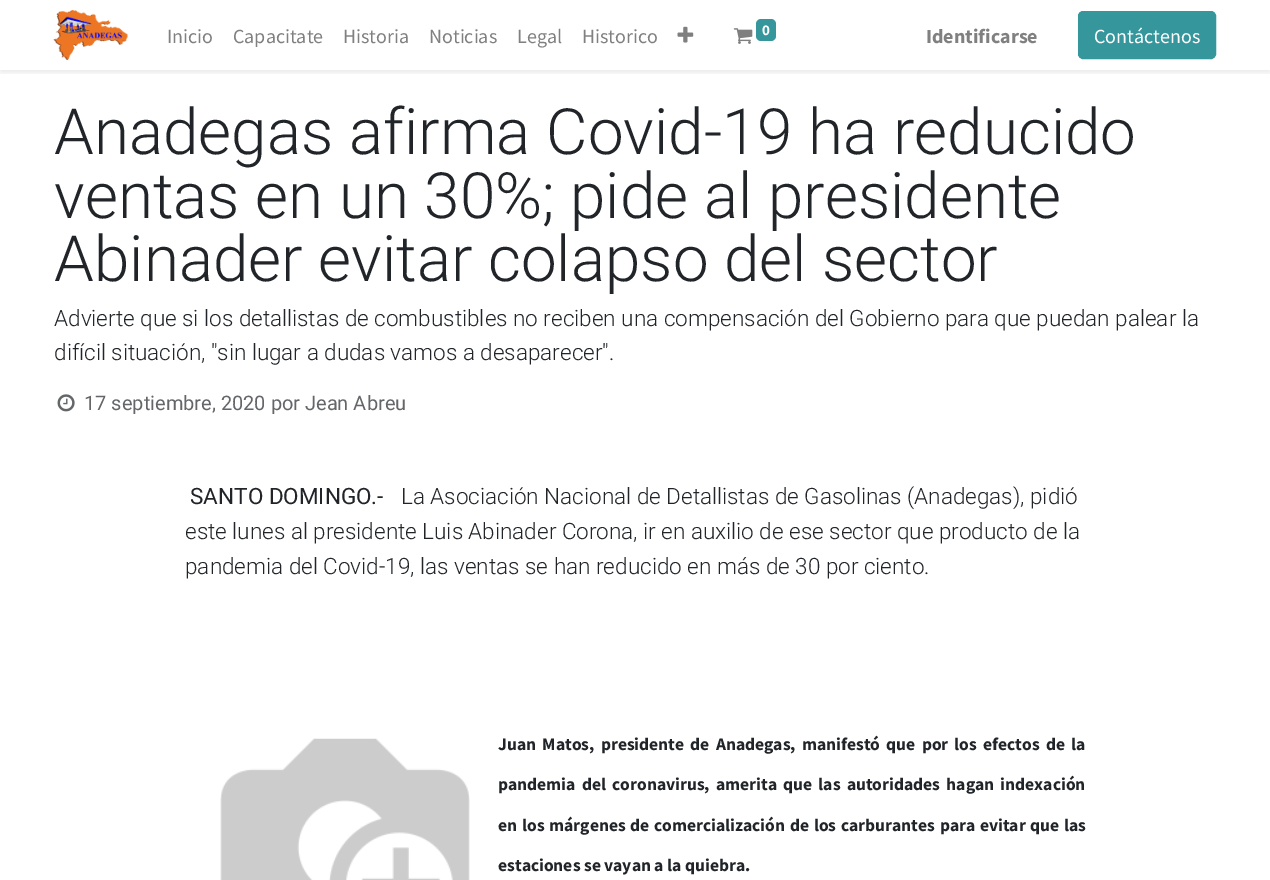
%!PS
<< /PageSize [1270 880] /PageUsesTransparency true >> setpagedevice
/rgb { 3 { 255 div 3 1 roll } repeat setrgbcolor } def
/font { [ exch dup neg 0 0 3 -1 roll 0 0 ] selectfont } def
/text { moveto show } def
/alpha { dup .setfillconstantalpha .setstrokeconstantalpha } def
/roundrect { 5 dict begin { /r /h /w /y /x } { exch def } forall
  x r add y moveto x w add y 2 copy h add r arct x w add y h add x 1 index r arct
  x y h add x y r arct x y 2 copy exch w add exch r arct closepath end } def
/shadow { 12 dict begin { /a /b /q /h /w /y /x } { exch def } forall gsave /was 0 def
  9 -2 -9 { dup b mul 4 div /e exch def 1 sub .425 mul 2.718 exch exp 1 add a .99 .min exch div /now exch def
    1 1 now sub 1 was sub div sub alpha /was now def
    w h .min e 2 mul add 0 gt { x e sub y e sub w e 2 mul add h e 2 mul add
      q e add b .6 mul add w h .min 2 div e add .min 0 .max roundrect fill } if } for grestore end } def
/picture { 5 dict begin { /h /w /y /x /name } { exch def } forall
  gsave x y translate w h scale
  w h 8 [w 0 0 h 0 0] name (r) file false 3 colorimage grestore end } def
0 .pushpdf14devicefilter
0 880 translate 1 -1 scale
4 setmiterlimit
255 255 255 rgb
0 0 1270 880 rectfill
gsave
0 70 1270 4 rectclip
0 0 0 rgb
0 3 1270 70 0 2.5 0.07 shadow
grestore
(img_01.rgb) 53 10 75 50 picture
(img_02.rgb) 677 26 17 17 picture
(img_03.rgb) 733 28 20 16 picture
53 151 156 rgb
756 19 20 22 5 roundrect fill
1078.5 11.5 137 47 4.5 roundrect gsave fill grestore
stroke
(img_04.rgb) 57 394 18 18 picture
(img_05.rgb) 220 738 250 142 picture
/SourceSansPro-Regular 20 font
128 128 128 rgb
(Inicio) 167 43 text
(Capacitate) 233 43 text
(Historia) 343 43 text
(Noticias) 429 43 text
(Legal) 517 43 text
(Historico) 582 43 text
/SourceSansPro-Bold 15 font
255 255 255 rgb
(0) 762 35 text
/SourceSansPro-Bold 20 font
128 128 128 rgb
(Identificarse) 926 43 text
/SourceSansPro-Regular 20 font
255 255 255 rgb
(Contáctenos) 1094 43 text
/Roboto-Light 63.75 font
33 37 41 rgb
(Anadegas afirma Covid-19 ha reducido) 54 154 text
(ventas en un 30%; pide al presidente) 54 218 text
(Abinader evitar colapso del sector) 54 281 text
/Roboto-Light 22.5 font
(Advierte que si los detallistas de combustibles no reciben una compensación del Gobierno para que puedan palear la) 54 326 text
(difícil situación, "sin lugar a dudas vamos a desaparecer".) 54 360 text
/Roboto-Regular 20 font
100 102 105 rgb
(17 septiembre, 2020 por Jean Abreu) 84 410 text
/Roboto-Regular 22.5 font
33 37 41 rgb
(SANTO DOMINGO.-) 190 504 text
/Roboto-Light 22.5 font
(La Asociación Nacional de Detallistas de Gasolinas \(Anadegas\), pidió) 401 504 text
(este lunes al presidente Luis Abinader Corona, ir en auxilio de ese sector que producto de la) 185 539 text
(pandemia del Covid-19, las ventas se han reducido en más de 30 por ciento.) 185 574 text
/SourceSansPro-Bold 17.5 font
498 750 moveto 2.75 0 32 (Juan Matos, presidente de Anadegas, manifestó que por los efectos de la) widthshow
498 790 moveto 2.75 0 32 (pandemia del coronavirus, amerita que las autoridades hagan indexación) widthshow
498 831 moveto 1.25 0 32 (en los márgenes de comercialización de los carburantes para evitar que las) widthshow
(estaciones se vayan a la quiebra.) 498 871 text
.poppdf14devicefilter showpage
